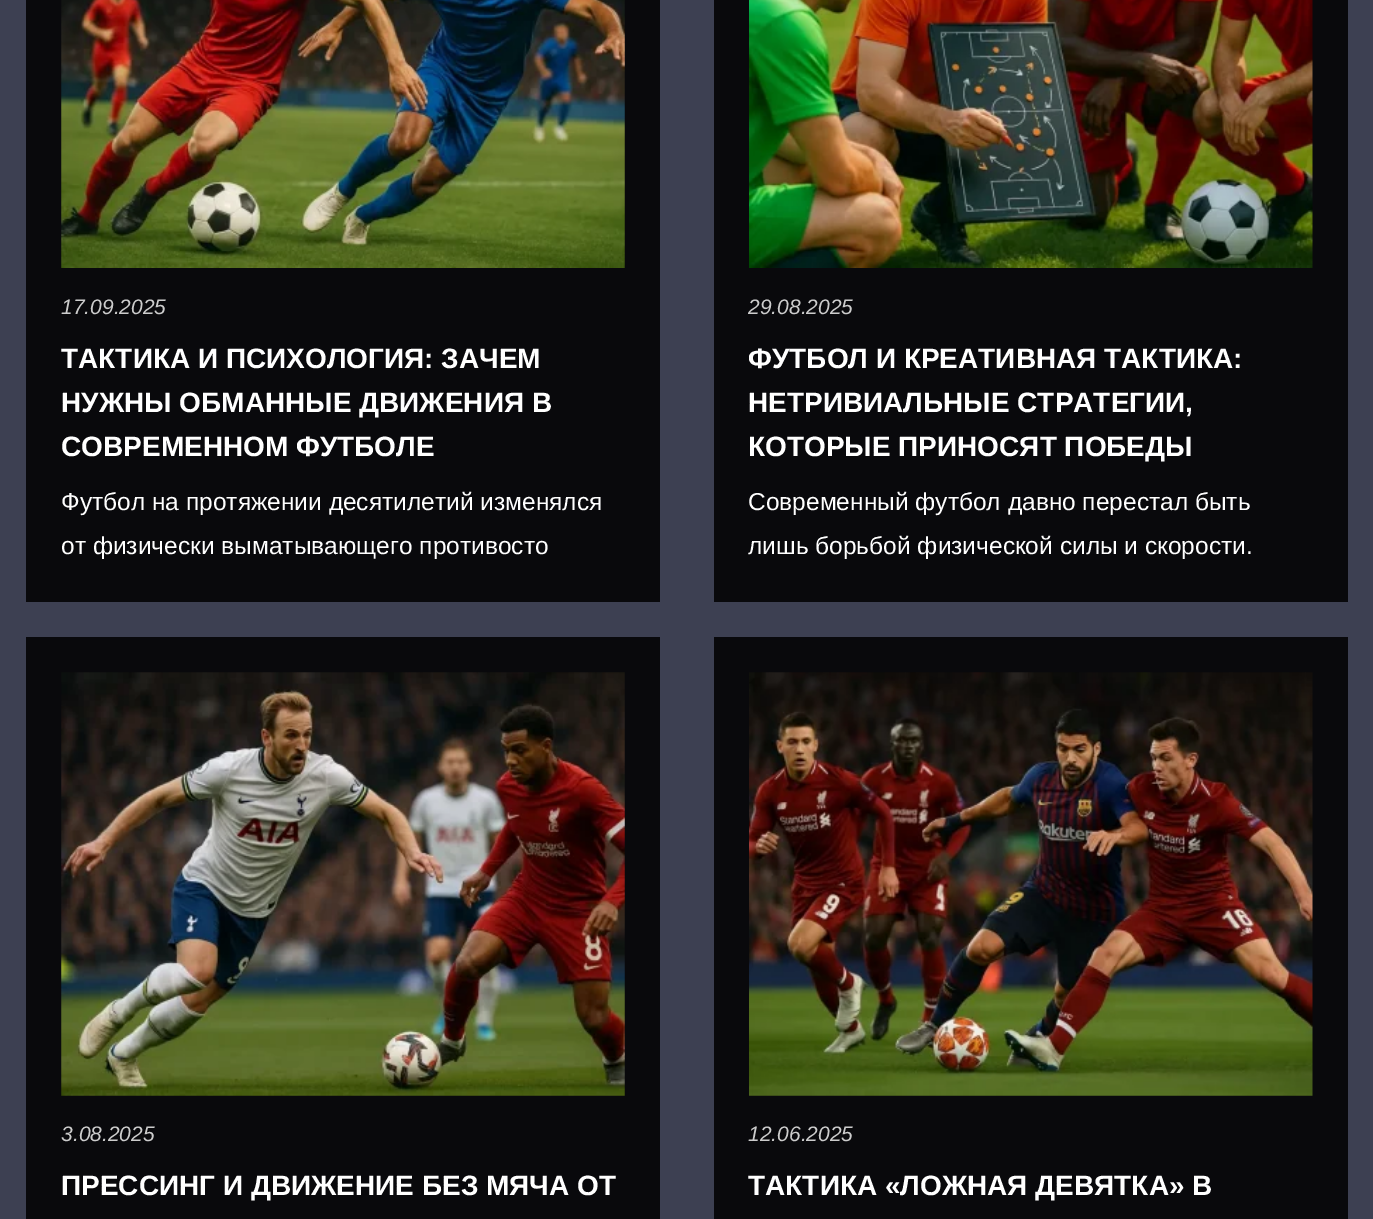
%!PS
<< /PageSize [1373 1219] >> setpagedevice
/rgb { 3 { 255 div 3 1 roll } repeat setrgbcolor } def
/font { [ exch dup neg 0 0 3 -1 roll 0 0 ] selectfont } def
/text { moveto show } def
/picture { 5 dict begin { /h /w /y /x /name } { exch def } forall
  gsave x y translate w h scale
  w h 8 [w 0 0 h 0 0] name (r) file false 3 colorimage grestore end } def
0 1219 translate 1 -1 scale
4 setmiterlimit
61 64 82 rgb
0 0 1373 1219 rectfill
9 9 12 rgb
26 0 634 602 rectfill
(img_01.rgb) 61 0 564 268 picture
714 0 634 602 rectfill
(img_02.rgb) 749 0 564 268 picture
26 637 634 582 rectfill
(img_03.rgb) 61 672 564 424 picture
714 637 634 582 rectfill
(img_04.rgb) 749 672 564 424 picture
/LiberationSans-Italic 21 font
204 204 204 rgb
(17.09.2025) 61 314 text
/LiberationSans-Bold 28 font
255 255 255 rgb
(ТАКТИКА И ПСИХОЛОГИЯ: ЗАЧЕМ) 61 368 text
(НУЖНЫ ОБМАННЫЕ ДВИЖЕНИЯ В) 61 412 text
(СОВРЕМЕННОМ ФУТБОЛЕ) 61 456 text
/LiberationSans-Regular 24.5 font
(Футбол на протяжении десятилетий изменялся) 61 510 text
(от физически выматывающего противосто) 61 554 text
/LiberationSans-Italic 21 font
204 204 204 rgb
(29.08.2025) 748 314 text
/LiberationSans-Bold 28 font
255 255 255 rgb
(ФУТБОЛ И КРЕАТИВНАЯ ТАКТИКА:) 748 368 text
(НЕТРИВИАЛЬНЫЕ СТРАТЕГИИ,) 748 412 text
(КОТОРЫЕ ПРИНОСЯТ ПОБЕДЫ) 748 456 text
/LiberationSans-Regular 24.5 font
(Современный футбол давно перестал быть) 748 510 text
(лишь борьбой физической силы и скорости.) 748 554 text
/LiberationSans-Italic 21 font
204 204 204 rgb
(3.08.2025) 61 1141 text
/LiberationSans-Bold 28 font
255 255 255 rgb
(ПРЕССИНГ И ДВИЖЕНИЕ БЕЗ МЯЧА ОТ) 61 1195 text
/LiberationSans-Italic 21 font
204 204 204 rgb
(12.06.2025) 748 1141 text
/LiberationSans-Bold 28 font
255 255 255 rgb
(ТАКТИКА «ЛОЖНАЯ ДЕВЯТКА» В) 748 1195 text
showpage
